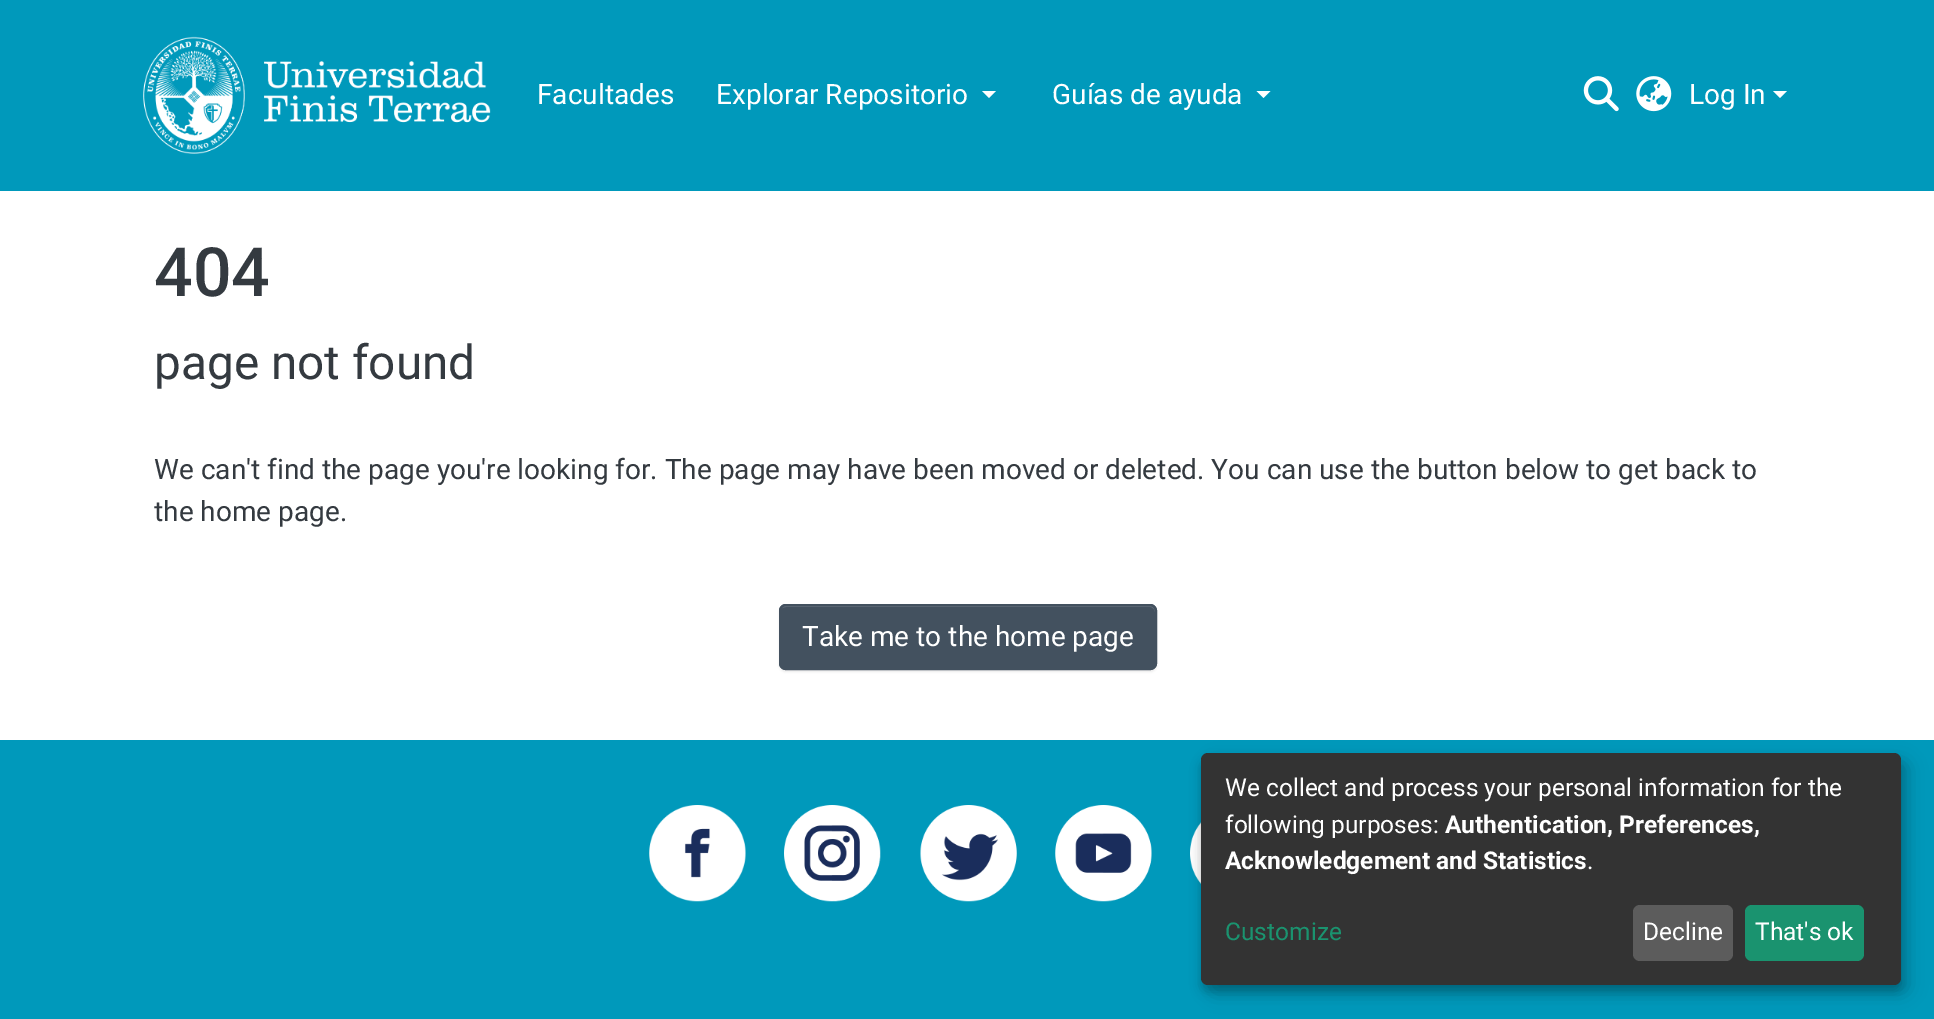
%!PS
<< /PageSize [1934 1019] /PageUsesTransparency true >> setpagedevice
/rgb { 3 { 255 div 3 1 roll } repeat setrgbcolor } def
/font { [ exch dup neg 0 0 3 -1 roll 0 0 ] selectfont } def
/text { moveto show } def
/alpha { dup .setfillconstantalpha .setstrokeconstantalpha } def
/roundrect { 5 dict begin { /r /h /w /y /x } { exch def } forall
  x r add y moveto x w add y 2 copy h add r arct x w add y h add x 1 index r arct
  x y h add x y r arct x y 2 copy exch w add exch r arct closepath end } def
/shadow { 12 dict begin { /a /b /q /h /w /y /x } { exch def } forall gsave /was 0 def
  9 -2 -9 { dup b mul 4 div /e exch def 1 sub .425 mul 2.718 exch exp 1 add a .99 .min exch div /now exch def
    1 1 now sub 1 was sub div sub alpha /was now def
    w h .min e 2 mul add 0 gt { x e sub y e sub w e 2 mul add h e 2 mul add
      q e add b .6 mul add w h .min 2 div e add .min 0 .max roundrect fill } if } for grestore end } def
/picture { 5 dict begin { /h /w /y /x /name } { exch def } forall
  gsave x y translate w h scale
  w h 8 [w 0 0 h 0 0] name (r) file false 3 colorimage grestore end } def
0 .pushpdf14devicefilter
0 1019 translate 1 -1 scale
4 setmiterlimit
255 255 255 rgb
0 0 1934 1019 rectfill
0 153 187 rgb
0 0 1934 191 rectfill
(img_01.rgb) 143 36 348 118 picture
255 255 255 rgb
982 91 moveto 14 0 rlineto -7 7 rlineto closepath fill
1256.5 91 moveto 14 0 rlineto -7 7 rlineto closepath fill
(img_02.rgb) 1583 76 36 36 picture
(img_03.rgb) 1636 76 36 36 picture
1773 91 moveto 14 0 rlineto -7 7 rlineto closepath fill
0 0 0 rgb
779 606 378 66 7 1 0.07 shadow
67 81 95 rgb
779 604 378 66 7 roundrect fill
95 107 119 rgb
786 607 moveto 364 0 rlineto 3 0 5 3 5 5 rcurveto 0 -3 -2 -6 -5 -6 rcurveto -365 0 rlineto -2 0 -3 2 -4 3 rcurveto 1 -1 3 -2 5 -2 rcurveto closepath fill
67 81 95 rgb
2 setlinewidth
780 605 376 64 6 roundrect stroke
0 153 187 rgb
0 740 1934 279 rectfill
(img_04.rgb) 649 805 97 97 picture
(img_05.rgb) 784 805 97 97 picture
(img_06.rgb) 920 805 97 97 picture
(img_07.rgb) 1055 805 97 97 picture
(img_08.rgb) 1190 822 11 62 picture
0 0 0 rgb
1209 761 700 233 7 9 0.19 shadow
1201 760 700 232 7 5 0.2 shadow
51 51 51 rgb
1201 753 700 232 7 roundrect fill
92 92 92 rgb
1633 905 100 56 7 roundrect fill
26 147 111 rgb
1745 905 119 56 7 roundrect fill
/Roboto-Regular 28 font
255 255 255 rgb
(Facultades) 537 104 text
(Explorar Repositorio) 716 104 text
(Guías de ayuda) 1052 104 text
(Log In) 1689 104 text
/Roboto-Medium 68 font
52 58 64 rgb
(404) 154 296 text
/Roboto-Regular 47.75 font
(page not found) 154 379 text
/Roboto-Regular 28 font
(We can't find the page you're looking for. The page may have been moved or deleted. You can use the button below to get back to) 154 479 text
(the home page.) 154 521 text
255 255 255 rgb
(Take me to the home page) 802 646 text
/Roboto-Regular 24.5 font
(We collect and process your personal information for the) 1225 796 text
(following purposes:) 1225 833 text
/Roboto-Bold 24.5 font
(Authentication, Preferences,) 1445 833 text
(Acknowledgement and Statistics) 1225 869 text
/Roboto-Regular 24.5 font
(.) 1587 869 text
26 147 111 rgb
(Customize) 1225 940 text
255 255 255 rgb
(Decline) 1643 940 text
(That's ok) 1755 940 text
.poppdf14devicefilter showpage
